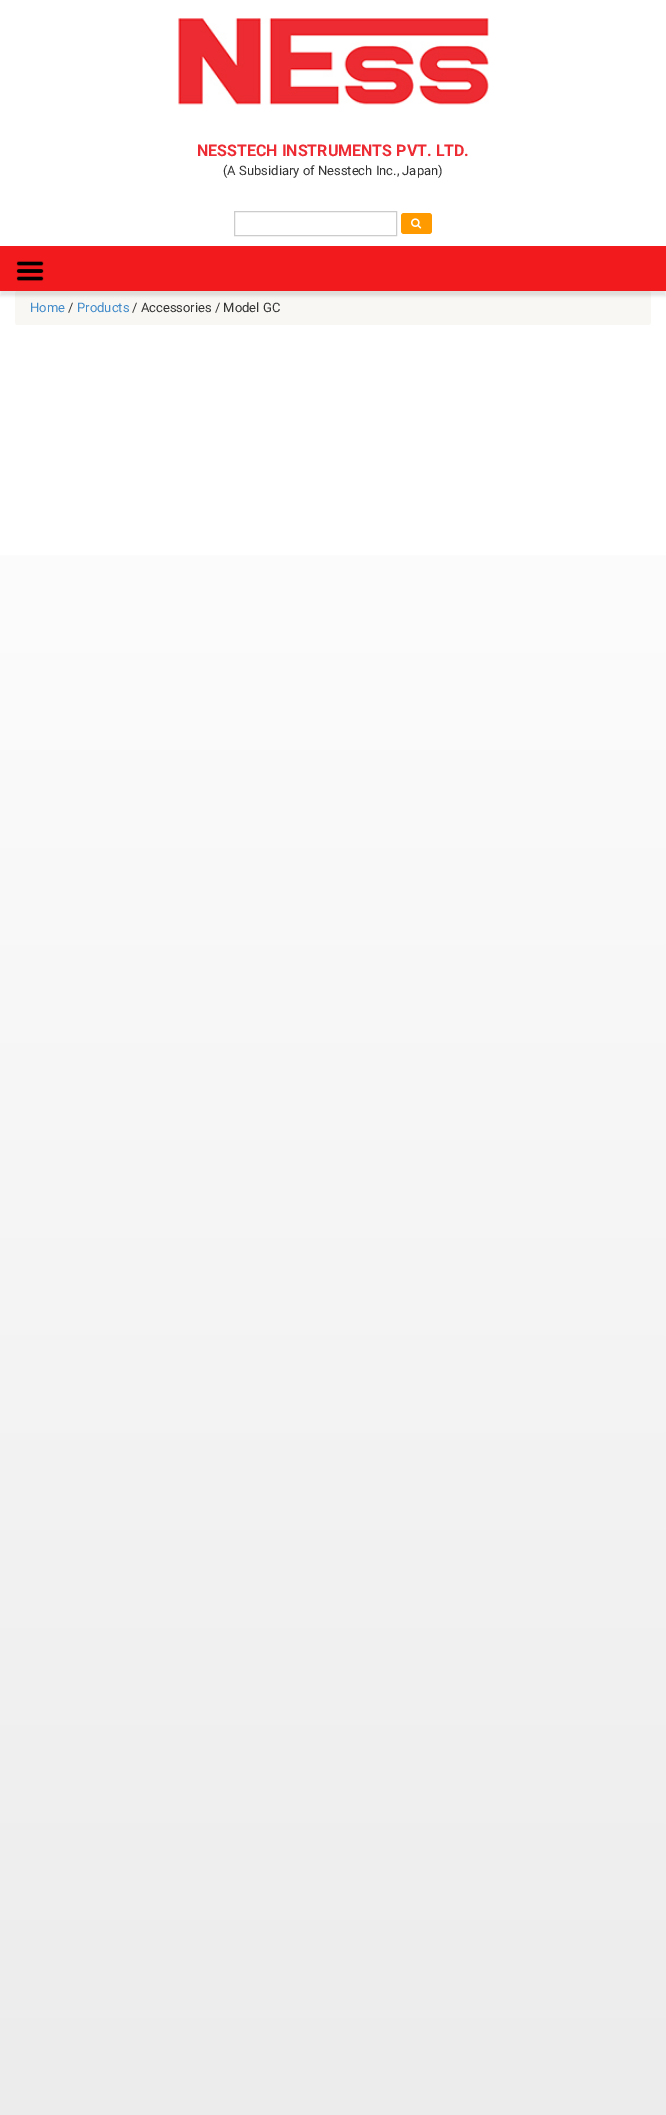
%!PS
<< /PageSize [666 2115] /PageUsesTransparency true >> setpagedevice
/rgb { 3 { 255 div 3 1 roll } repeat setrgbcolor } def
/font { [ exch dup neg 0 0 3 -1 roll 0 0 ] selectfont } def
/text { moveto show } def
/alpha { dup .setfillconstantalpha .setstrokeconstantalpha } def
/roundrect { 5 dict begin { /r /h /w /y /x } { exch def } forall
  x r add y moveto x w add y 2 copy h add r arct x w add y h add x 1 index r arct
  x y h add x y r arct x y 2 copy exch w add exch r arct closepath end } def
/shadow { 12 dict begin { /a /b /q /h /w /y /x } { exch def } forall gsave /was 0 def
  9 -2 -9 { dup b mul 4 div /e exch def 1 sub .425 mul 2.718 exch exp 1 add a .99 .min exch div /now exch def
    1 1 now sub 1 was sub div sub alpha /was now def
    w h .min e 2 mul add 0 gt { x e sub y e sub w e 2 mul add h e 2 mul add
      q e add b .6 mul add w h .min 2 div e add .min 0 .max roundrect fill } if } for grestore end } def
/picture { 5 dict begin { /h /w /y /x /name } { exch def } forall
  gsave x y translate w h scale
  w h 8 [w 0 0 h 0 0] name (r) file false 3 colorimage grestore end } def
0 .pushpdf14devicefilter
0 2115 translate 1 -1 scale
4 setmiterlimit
255 255 255 rgb
0 0 666 2115 rectfill
(img_01.rgb) 178 18 311 87 picture
204 204 204 rgb
234.5 211.5 162 24 rectstroke
255 154 0 rgb
401 213 31 21 3 roundrect fill
(img_02.rgb) 411 218 11 11 picture
248 247 243 rgb
15 291 636 34 3 roundrect fill
0 0 0 rgb
0 251 666 45 0 1.5 0.1 shadow
242 26 29 rgb
0 246 666 45 rectfill
(img_03.rgb) 16 261 28 20 picture
gsave 0 555 moveto 666 0 rlineto 0 1560 rlineto -666 0 rlineto closepath clip newpath
<< /ShadingType 2 /ColorSpace /DeviceRGB /Coords [333 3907 333 325] /Extend [true true] /Function << /FunctionType 2 /Domain [0 1] /C0 [0.847 0.847 0.847] /C1 [1 1 1] /N 1 >> >> shfill grestore
/Roboto-Bold 16 font
237 43 51 rgb
(NESSTECH INSTRUMENTS PVT. LTD.) 197 156 text
/Roboto-Regular 13 font
51 51 51 rgb
(\(A Subsidiary of Nesstech Inc., Japan\)) 223 175 text
66 139 202 rgb
(Home) 30 312 text
51 51 51 rgb
(/) 68 312 text
66 139 202 rgb
(Products) 77 312 text
51 51 51 rgb
(/ Accessories / Model GC) 132 312 text
.poppdf14devicefilter showpage
